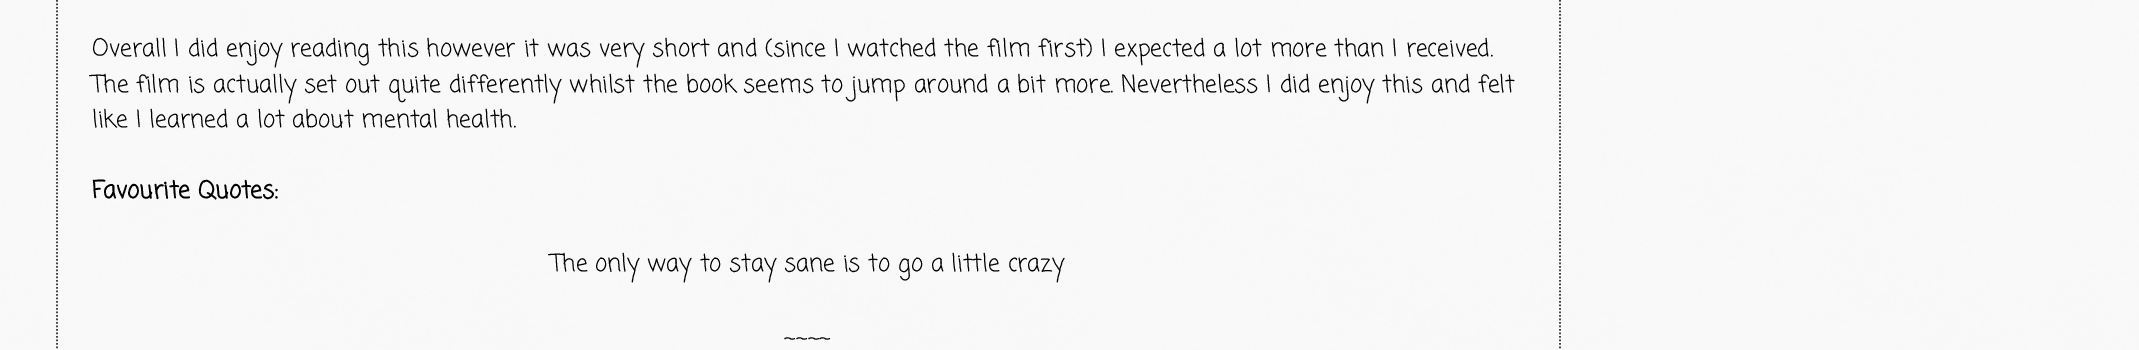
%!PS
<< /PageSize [2139 350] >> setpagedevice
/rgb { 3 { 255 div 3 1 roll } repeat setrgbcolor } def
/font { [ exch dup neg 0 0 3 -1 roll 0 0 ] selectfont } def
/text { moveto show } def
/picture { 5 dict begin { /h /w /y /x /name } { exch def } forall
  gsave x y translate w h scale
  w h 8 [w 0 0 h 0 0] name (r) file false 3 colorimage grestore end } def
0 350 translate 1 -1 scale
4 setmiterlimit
243 243 243 rgb
0 0 2139 350 rectfill
(img_01.rgb) 0 0 2139 350 picture
68 68 68 rgb
1.8 setlinewidth
[1.75 1.75] 0 setdash
1560 -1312.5 moveto 0 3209.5 rlineto stroke
57 -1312.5 moveto 0 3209.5 rlineto stroke
/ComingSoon-Regular 23.67 font
0 0 0 rgb
(Overall I did enjoy reading this however it was very short and \(since I watched the film first\) I expected a lot more than I received.) 92 56 text
(The film is actually set out quite differently whilst the book seems to jump around a bit more. Nevertheless I did enjoy this and felt) 92 92 text
(like I learned a lot about mental health.) 92 127 text
/ComingSoon-Bold 23.67 font
(Favourite Quotes:) 92 198 text
/ComingSoon-Regular 23.67 font
(The only way to stay sane is to go a little crazy) 551 271 text
(~~~~) 784 346 text
showpage
